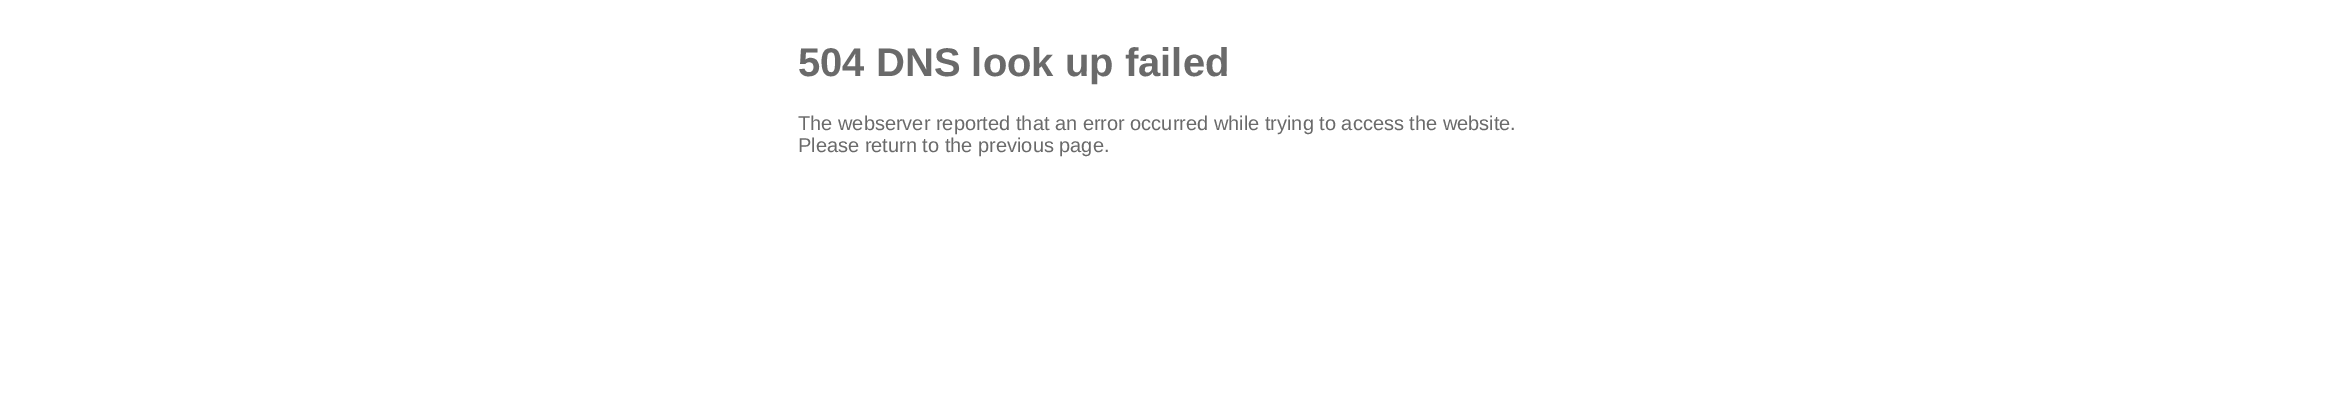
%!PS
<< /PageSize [2344 403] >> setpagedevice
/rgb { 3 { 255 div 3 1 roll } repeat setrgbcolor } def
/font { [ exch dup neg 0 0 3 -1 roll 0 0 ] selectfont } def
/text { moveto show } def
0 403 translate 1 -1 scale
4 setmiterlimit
255 255 255 rgb
0 0 2344 403 rectfill
/LiberationSans-Bold 40 font
106 106 106 rgb
(504 DNS look up failed) 798 76 text
/LiberationSans-Regular 20 font
(The webserver reported that an error occurred while trying to access the website.) 798 130 text
(Please return to the previous page.) 798 152 text
showpage
